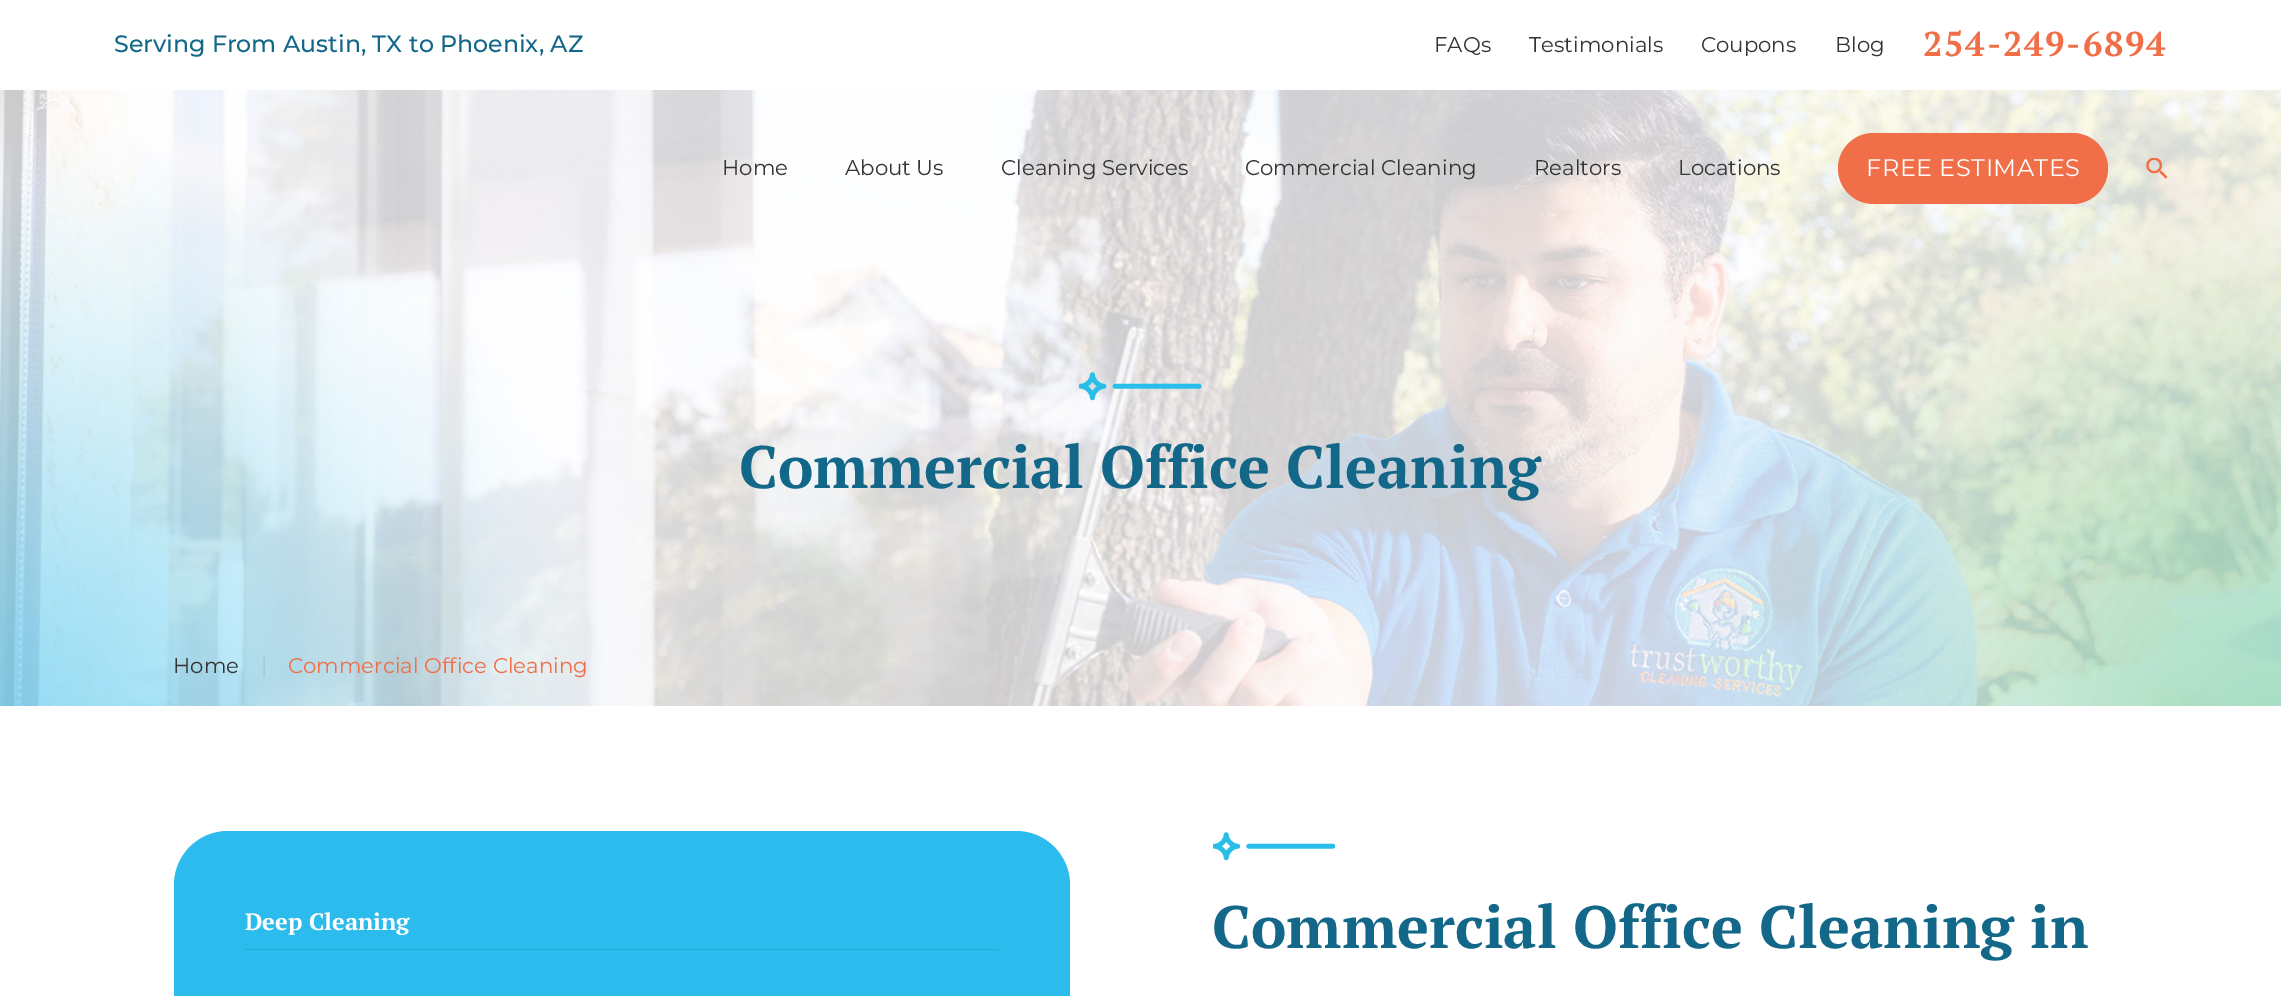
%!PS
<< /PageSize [2281 996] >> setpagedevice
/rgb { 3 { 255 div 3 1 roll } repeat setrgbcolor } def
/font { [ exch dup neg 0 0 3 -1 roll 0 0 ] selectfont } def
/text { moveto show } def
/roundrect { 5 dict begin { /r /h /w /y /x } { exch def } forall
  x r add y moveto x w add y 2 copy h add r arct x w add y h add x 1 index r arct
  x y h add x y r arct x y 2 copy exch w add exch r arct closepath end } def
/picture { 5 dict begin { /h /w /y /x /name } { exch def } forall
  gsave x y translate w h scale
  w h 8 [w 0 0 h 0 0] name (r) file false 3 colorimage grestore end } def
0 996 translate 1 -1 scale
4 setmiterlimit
255 255 255 rgb
0 0 2281 996 rectfill
(img_02.rgb) 0 90 2281 616 picture
240 110 72 rgb
1838 133 270 71 35.5 roundrect fill
(img_01.rgb) 2146 158 22 21 picture
(img_03.rgb) 1079 372 123 29 picture
44 187 237 rgb
174 831 896 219 54 roundrect fill
40 168 213 rgb
245 949 753 1 rectfill
(img_04.rgb) 1213 832 122 29 picture
/Montserrat-Medium 23.7 font
19 104 137 rgb
(Serving From Austin, TX to Phoenix, AZ) 114 52 text
/Montserrat-Regular 21.25 font
52 52 52 rgb
(FAQs) 1434 52 text
(Testimonials) 1529 52 text
(Coupons) 1701 52 text
(Blog) 1835 52 text
/PTSerif-Bold 34.5 font
240 110 72 rgb
1923 56 moveto 1.75 0 (254-249-6894) ashow
/Montserrat-Regular 21.25 font
52 52 52 rgb
(Home) 722 175 text
(About Us) 845 175 text
(Cleaning Services) 1001 175 text
(Commercial Cleaning) 1245 175 text
(Realtors) 1534 175 text
(Locations) 1678 175 text
/Montserrat-Regular 24 font
255 255 255 rgb
1866 176 moveto 0.5 0 (FREE ESTIMATES) ashow
/PTSerif-Bold 59.75 font
19 104 137 rgb
(Commercial Office Cleaning) 739 488 text
/Montserrat-Regular 21.25 font
52 52 52 rgb
(Home) 173 673 text
159 197 211 rgb
(|) 261 673 text
240 110 72 rgb
(Commercial Office Cleaning) 288 673 text
/PTSerif-Bold 23.7 font
255 255 255 rgb
(Deep Cleaning) 245 930 text
/PTSerif-Bold 59.75 font
19 104 137 rgb
(Commercial Office Cleaning in) 1212 948 text
showpage
